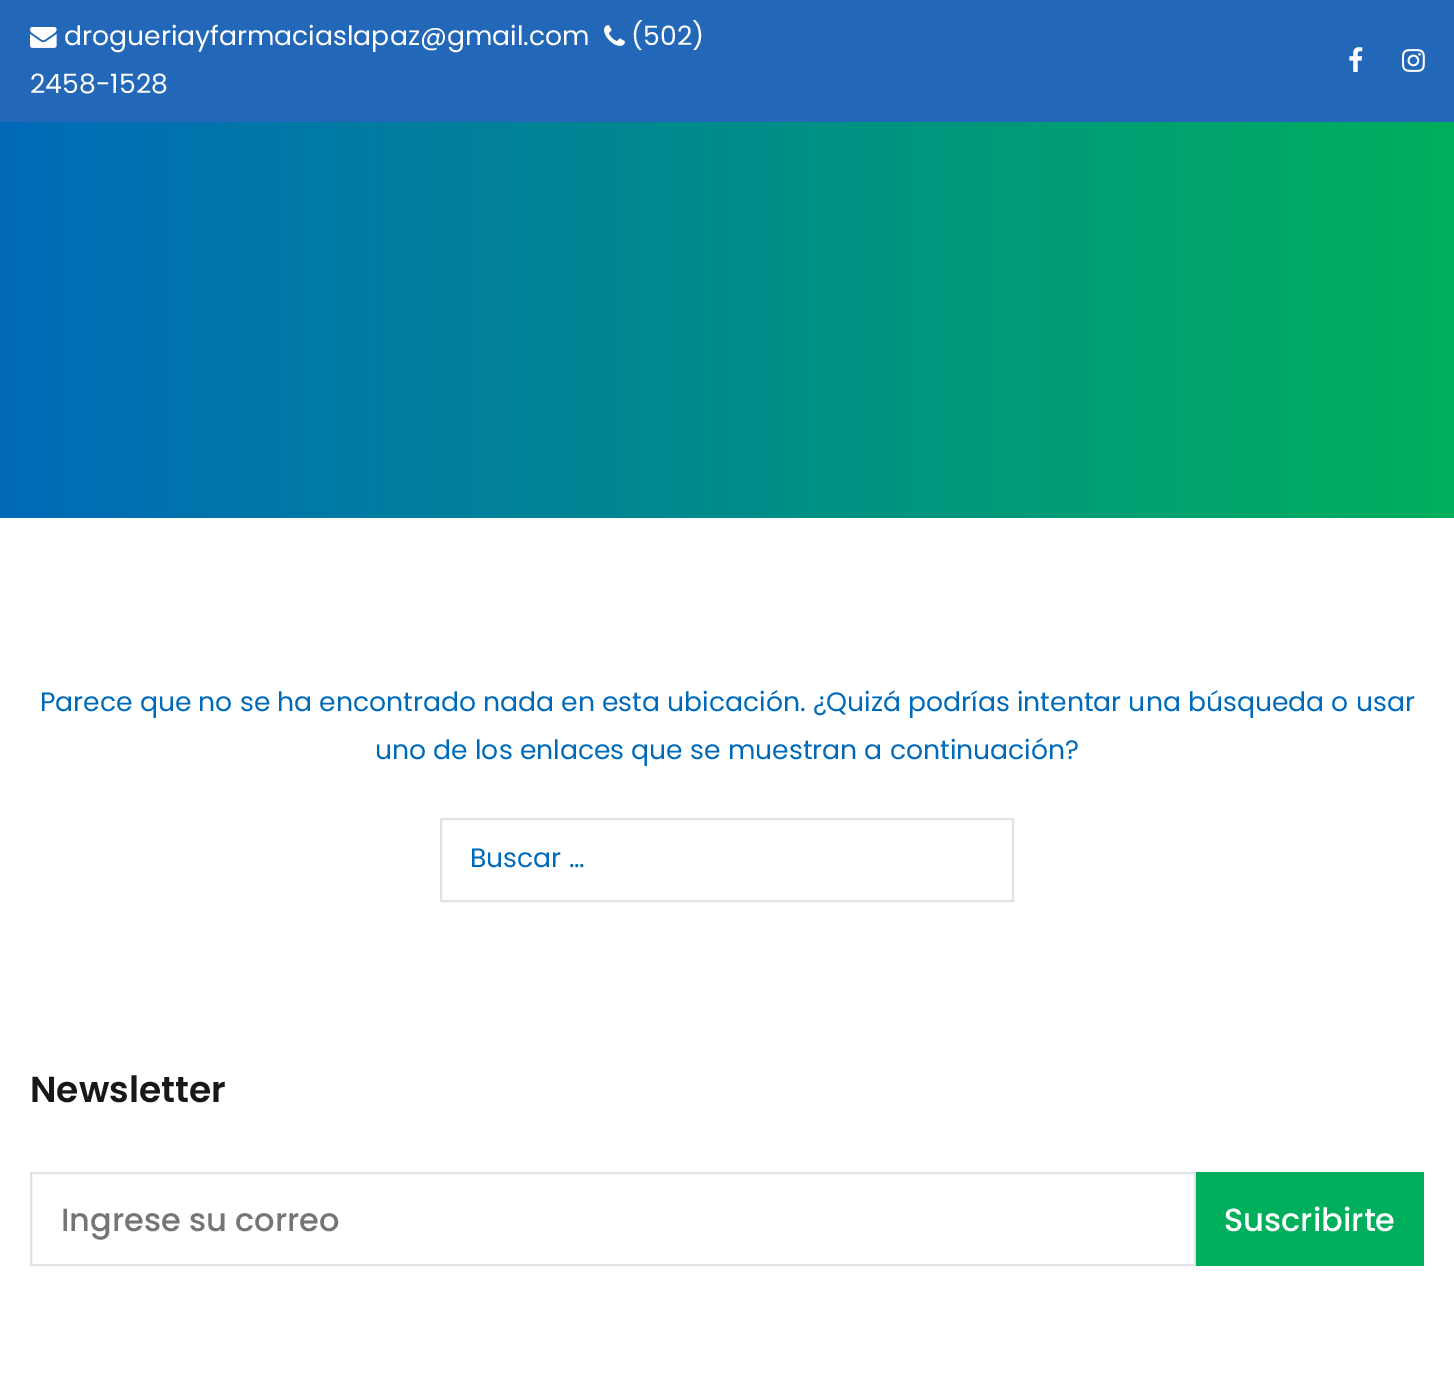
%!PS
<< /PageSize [1454 1374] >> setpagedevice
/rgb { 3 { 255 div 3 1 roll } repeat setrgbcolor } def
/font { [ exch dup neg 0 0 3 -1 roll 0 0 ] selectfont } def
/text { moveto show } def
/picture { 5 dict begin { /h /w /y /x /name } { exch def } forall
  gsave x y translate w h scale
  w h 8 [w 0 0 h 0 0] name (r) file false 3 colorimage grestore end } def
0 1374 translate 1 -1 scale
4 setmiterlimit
255 255 255 rgb
0 0 1454 1374 rectfill
gsave 0 122 moveto 1454 0 rlineto 0 396 rlineto -1454 0 rlineto closepath clip newpath
<< /ShadingType 2 /ColorSpace /DeviceRGB /Coords [0 259 1454 259] /Extend [true true] /Function << /FunctionType 2 /Domain [0 1] /C0 [0 0.416 0.729] /C1 [0 0.686 0.361] /N 1 >> >> shfill grestore
35 103 184 rgb
0 0 1454 122 rectfill
(img_01.rgb) 30 27 27 21 picture
(img_02.rgb) 604 25 21 21 picture
(img_03.rgb) 1349 47 14 25 picture
(img_04.rgb) 1402 49 23 23 picture
222 226 230 rgb
2 setlinewidth
441 819 572 82 rectstroke
31 1173 1164 92 rectstroke
0 175 92 rgb
1196 1172 228 94 rectfill
/Poppins-Regular 26.65 font
255 255 255 rgb
(drogueriayfarmaciaslapaz@gmail.com) 64 45 text
(\(502\)) 631 45 text
(2458-1528) 30 93 text
0 106 186 rgb
(Parece que no se ha encontrado nada en esta ubicación. ¿Quizá podrías intentar una búsqueda o usar) 40 711 text
(uno de los enlaces que se muestran a continuación?) 375 759 text
(Buscar …) 470 867 text
/Poppins-SemiBold 36 font
22 24 26 rgb
(Newsletter) 30 1102 text
/Poppins-Medium 32 font
117 117 117 rgb
(Ingrese su correo) 61 1231 text
255 255 255 rgb
(Suscribirte) 1224 1231 text
showpage
